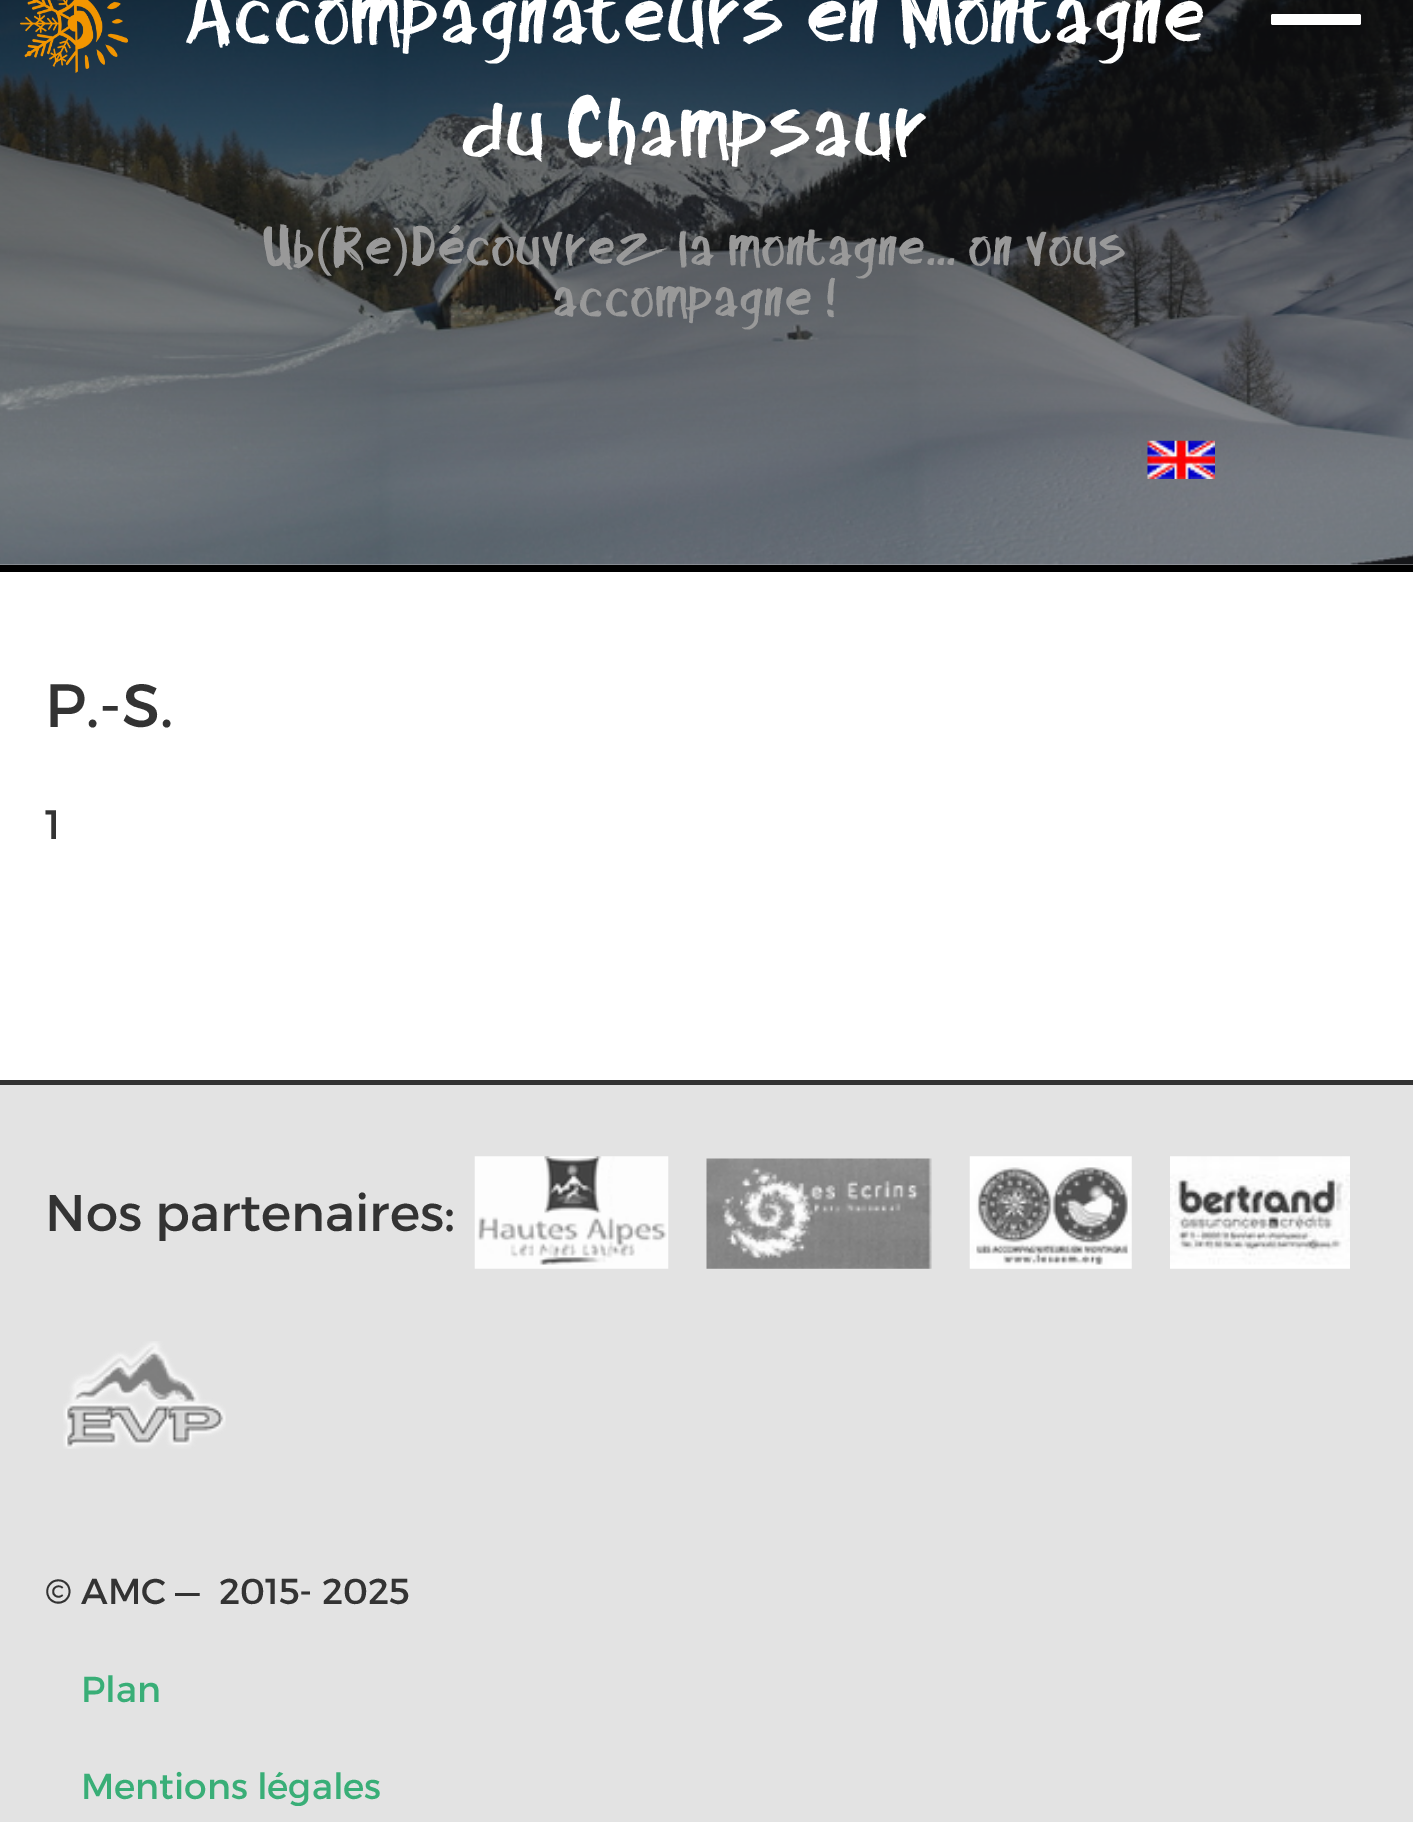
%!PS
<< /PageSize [1413 1822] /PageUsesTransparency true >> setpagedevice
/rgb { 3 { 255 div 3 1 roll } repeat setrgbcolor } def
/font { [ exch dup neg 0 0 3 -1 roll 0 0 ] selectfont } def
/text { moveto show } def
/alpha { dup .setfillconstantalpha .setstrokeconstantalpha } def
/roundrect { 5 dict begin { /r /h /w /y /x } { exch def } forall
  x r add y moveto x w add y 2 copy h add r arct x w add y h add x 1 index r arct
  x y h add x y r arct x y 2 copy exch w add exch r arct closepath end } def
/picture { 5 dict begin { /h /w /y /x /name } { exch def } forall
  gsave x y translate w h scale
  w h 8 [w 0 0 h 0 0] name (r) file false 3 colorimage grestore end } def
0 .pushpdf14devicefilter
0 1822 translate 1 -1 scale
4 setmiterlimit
255 255 255 rgb
0 0 1413 1822 rectfill
174 175 178 rgb
0 564 1413 1 rectfill
(img_01.rgb) 0 0 1413 565 picture
0 0 0 rgb
0 565 1413 7 rectfill
(img_02.rgb) 20 0 109 73 picture
(img_03.rgb) 1147 440 68 39 picture
0.25 alpha
1271 17 moveto 0 5 rlineto 0 2 -1 5 2 5 rcurveto 87 0 rlineto 1 -1 1 -2 1 -3 rcurveto 0 0 -1 1 -2 1 rcurveto -85 0 rlineto -2 0 -3 -1 -3 -3 rcurveto closepath fill
1 alpha
255 255 255 rgb
1271 14 90 11 2 roundrect fill
227 227 227 rgb
0 1085 1413 737 rectfill
51 51 51 rgb
0 1080 1413 5 rectfill
(img_04.rgb) 474 1156 195 113 picture
(img_05.rgb) 706 1158 226 111 picture
(img_06.rgb) 969 1156 163 113 picture
(img_07.rgb) 1170 1156 180 113 picture
(img_08.rgb) 63 1341 163 108 picture
/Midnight-Regular 79.25 font
255 255 255 rgb
(Accompagnateurs en Montagne) 183 43 text
(du Champsaur) 460 156 text
/Midnight-Regular 51.5 font
153 153 153 rgb
(Ub) 262 265 text
/LiberationSans-Regular 51.5 font
(\() 315 265 text
/Midnight-Regular 51.5 font
(Re) 332 265 text
/LiberationSans-Regular 51.5 font
(\)) 393 265 text
/Midnight-Regular 51.5 font
(Découvrez la montagne... on vous) 411 265 text
(accompagne !) 552 316 text
/Montserrat-Regular 61 font
51 51 51 rgb
(P.-S.) 45 727 text
/Montserrat-Regular 41 font
(1) 45 839 text
/Montserrat-Regular 51.25 font
(Nos partenaires:) 45 1231 text
/Montserrat-Regular 36 font
(© AMC —  2015- 2025) 45 1604 text
57 174 119 rgb
(Plan) 81 1702 text
(Mentions légales) 81 1799 text
.poppdf14devicefilter showpage
